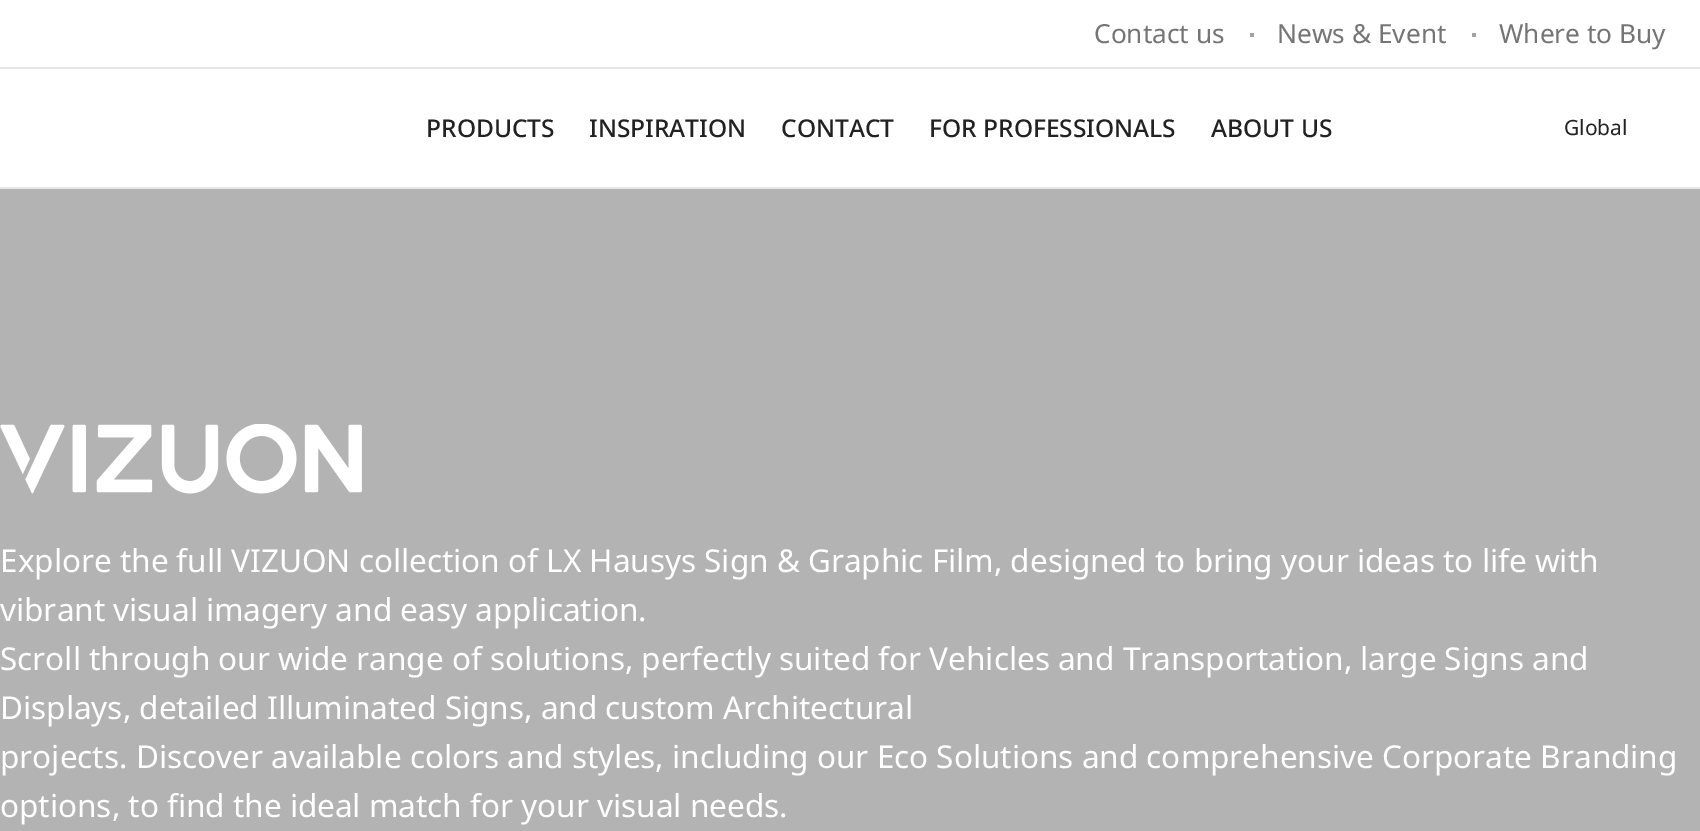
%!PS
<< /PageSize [1700 831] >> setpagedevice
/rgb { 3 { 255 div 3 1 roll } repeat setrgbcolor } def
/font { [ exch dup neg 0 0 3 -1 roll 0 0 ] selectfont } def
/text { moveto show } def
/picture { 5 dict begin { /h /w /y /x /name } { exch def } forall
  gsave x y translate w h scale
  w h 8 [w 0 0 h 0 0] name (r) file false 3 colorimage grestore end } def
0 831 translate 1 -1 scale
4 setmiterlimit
255 255 255 rgb
0 0 1700 831 rectfill
163 163 163 rgb
1250 33 4 4 rectfill
1472 33 4 4 rectfill
230 230 230 rgb
0 67 1700 2 rectfill
0 187 1700 2 rectfill
179 179 179 rgb
0 189 1700 642 rectfill
(img_01.rgb) 0 424 362 70 picture
/NotoSans-Regular 26.25 font
117 117 117 rgb
(Contact us) 1094 43 text
(News & Event) 1277 43 text
(Where to Buy) 1499 43 text
/NotoSans-Medium 24.5 font
34 34 34 rgb
(PRODUCTS) 426 137 text
(INSPIRATION) 589 137 text
(CONTACT) 781 137 text
(FOR PROFESSIONALS) 929 137 text
(ABOUT US) 1211 137 text
/NotoSans-Regular 21 font
(Global) 1564 135 text
/NotoSans-Regular 31.5 font
255 255 255 rgb
(Explore the full VIZUON collection of LX Hausys Sign & Graphic Film, designed to bring your ideas to life with) 0 572 text
(vibrant visual imagery and easy application.) 0 621 text
(Scroll through our wide range of solutions, perfectly suited for Vehicles and Transportation, large Signs and) 0 670 text
(Displays, detailed Illuminated Signs, and custom Architectural) 0 719 text
(projects. Discover available colors and styles, including our Eco Solutions and comprehensive Corporate Branding) 0 768 text
(options, to find the ideal match for your visual needs.) 0 817 text
showpage
